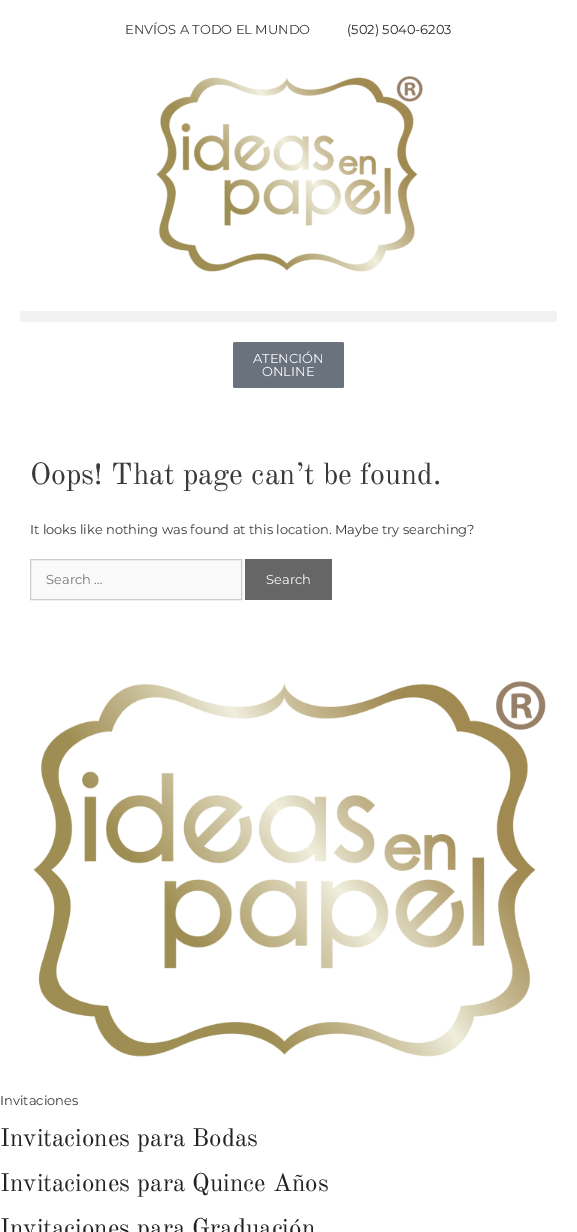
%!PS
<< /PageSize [577 1232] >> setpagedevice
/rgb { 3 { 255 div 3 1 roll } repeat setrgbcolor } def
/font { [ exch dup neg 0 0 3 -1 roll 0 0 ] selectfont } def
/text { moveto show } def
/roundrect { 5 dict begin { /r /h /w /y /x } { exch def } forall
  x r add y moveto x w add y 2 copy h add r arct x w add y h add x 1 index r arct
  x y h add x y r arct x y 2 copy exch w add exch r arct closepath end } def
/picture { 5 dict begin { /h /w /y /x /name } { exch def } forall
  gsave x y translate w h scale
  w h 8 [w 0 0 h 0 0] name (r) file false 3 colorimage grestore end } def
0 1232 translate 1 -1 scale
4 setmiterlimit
255 255 255 rgb
0 0 577 1232 rectfill
(img_01.rgb) 156 76 267 196 picture
242 242 242 rgb
20 311 537 11 3 roundrect fill
105 114 125 rgb
233 342 111 46 2 roundrect fill
250 250 250 rgb
30.5 559.5 moveto 211 0 rlineto 0 40 rlineto -211 0 rlineto closepath gsave fill grestore
204 204 204 rgb
stroke
102 102 102 rgb
245 559 87 41 rectfill
(img_02.rgb) 33 681 513 376 picture
/Montserrat-Regular 13 font
58 58 58 rgb
(ENVÍOS A TODO EL MUNDO) 125 34 text
34 34 34 rgb
(\(502\) 5040-6203) 347 34 text
255 255 255 rgb
(ATENCIÓN) 253 363 text
(ONLINE) 262 376 text
/OldStandardTT-Regular 30 font
58 58 58 rgb
(Oops! That page can’t be found.) 30 484 text
/Montserrat-Regular 13 font
(It looks like nothing was found at this location. Maybe try searching?) 30 534 text
117 117 117 rgb
(Search …) 46 584 text
255 255 255 rgb
(Search) 266 584 text
58 58 58 rgb
(Invitaciones) 0 1105 text
/OldStandardTT-Regular 25 font
34 34 34 rgb
(Invitaciones para Bodas) 0 1146 text
(Invitaciones para Quince Años) 0 1191 text
(Invitaciones para Graduación) 0 1236 text
showpage
